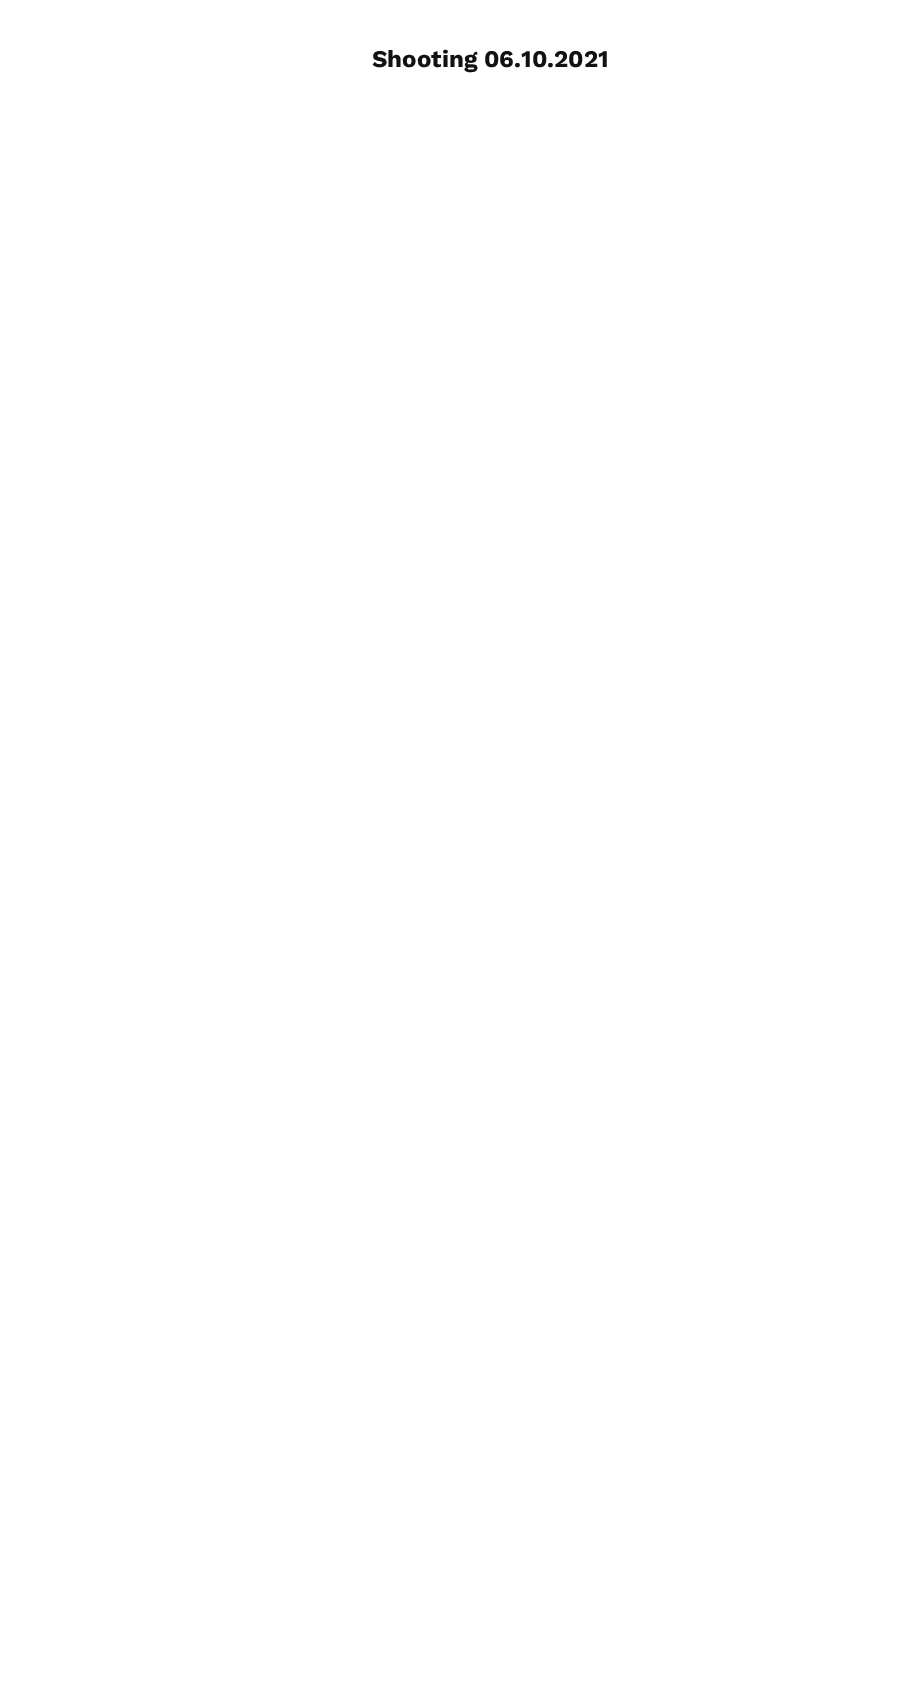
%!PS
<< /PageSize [897 1700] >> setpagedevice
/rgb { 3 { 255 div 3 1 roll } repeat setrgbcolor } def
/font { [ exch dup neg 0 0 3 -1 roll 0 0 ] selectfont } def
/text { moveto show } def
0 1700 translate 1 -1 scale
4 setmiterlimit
255 255 255 rgb
0 0 897 1700 rectfill
/WorkSans-Bold 24 font
18 18 18 rgb
(Shooting 06.10.2021) 372 67 text
showpage
